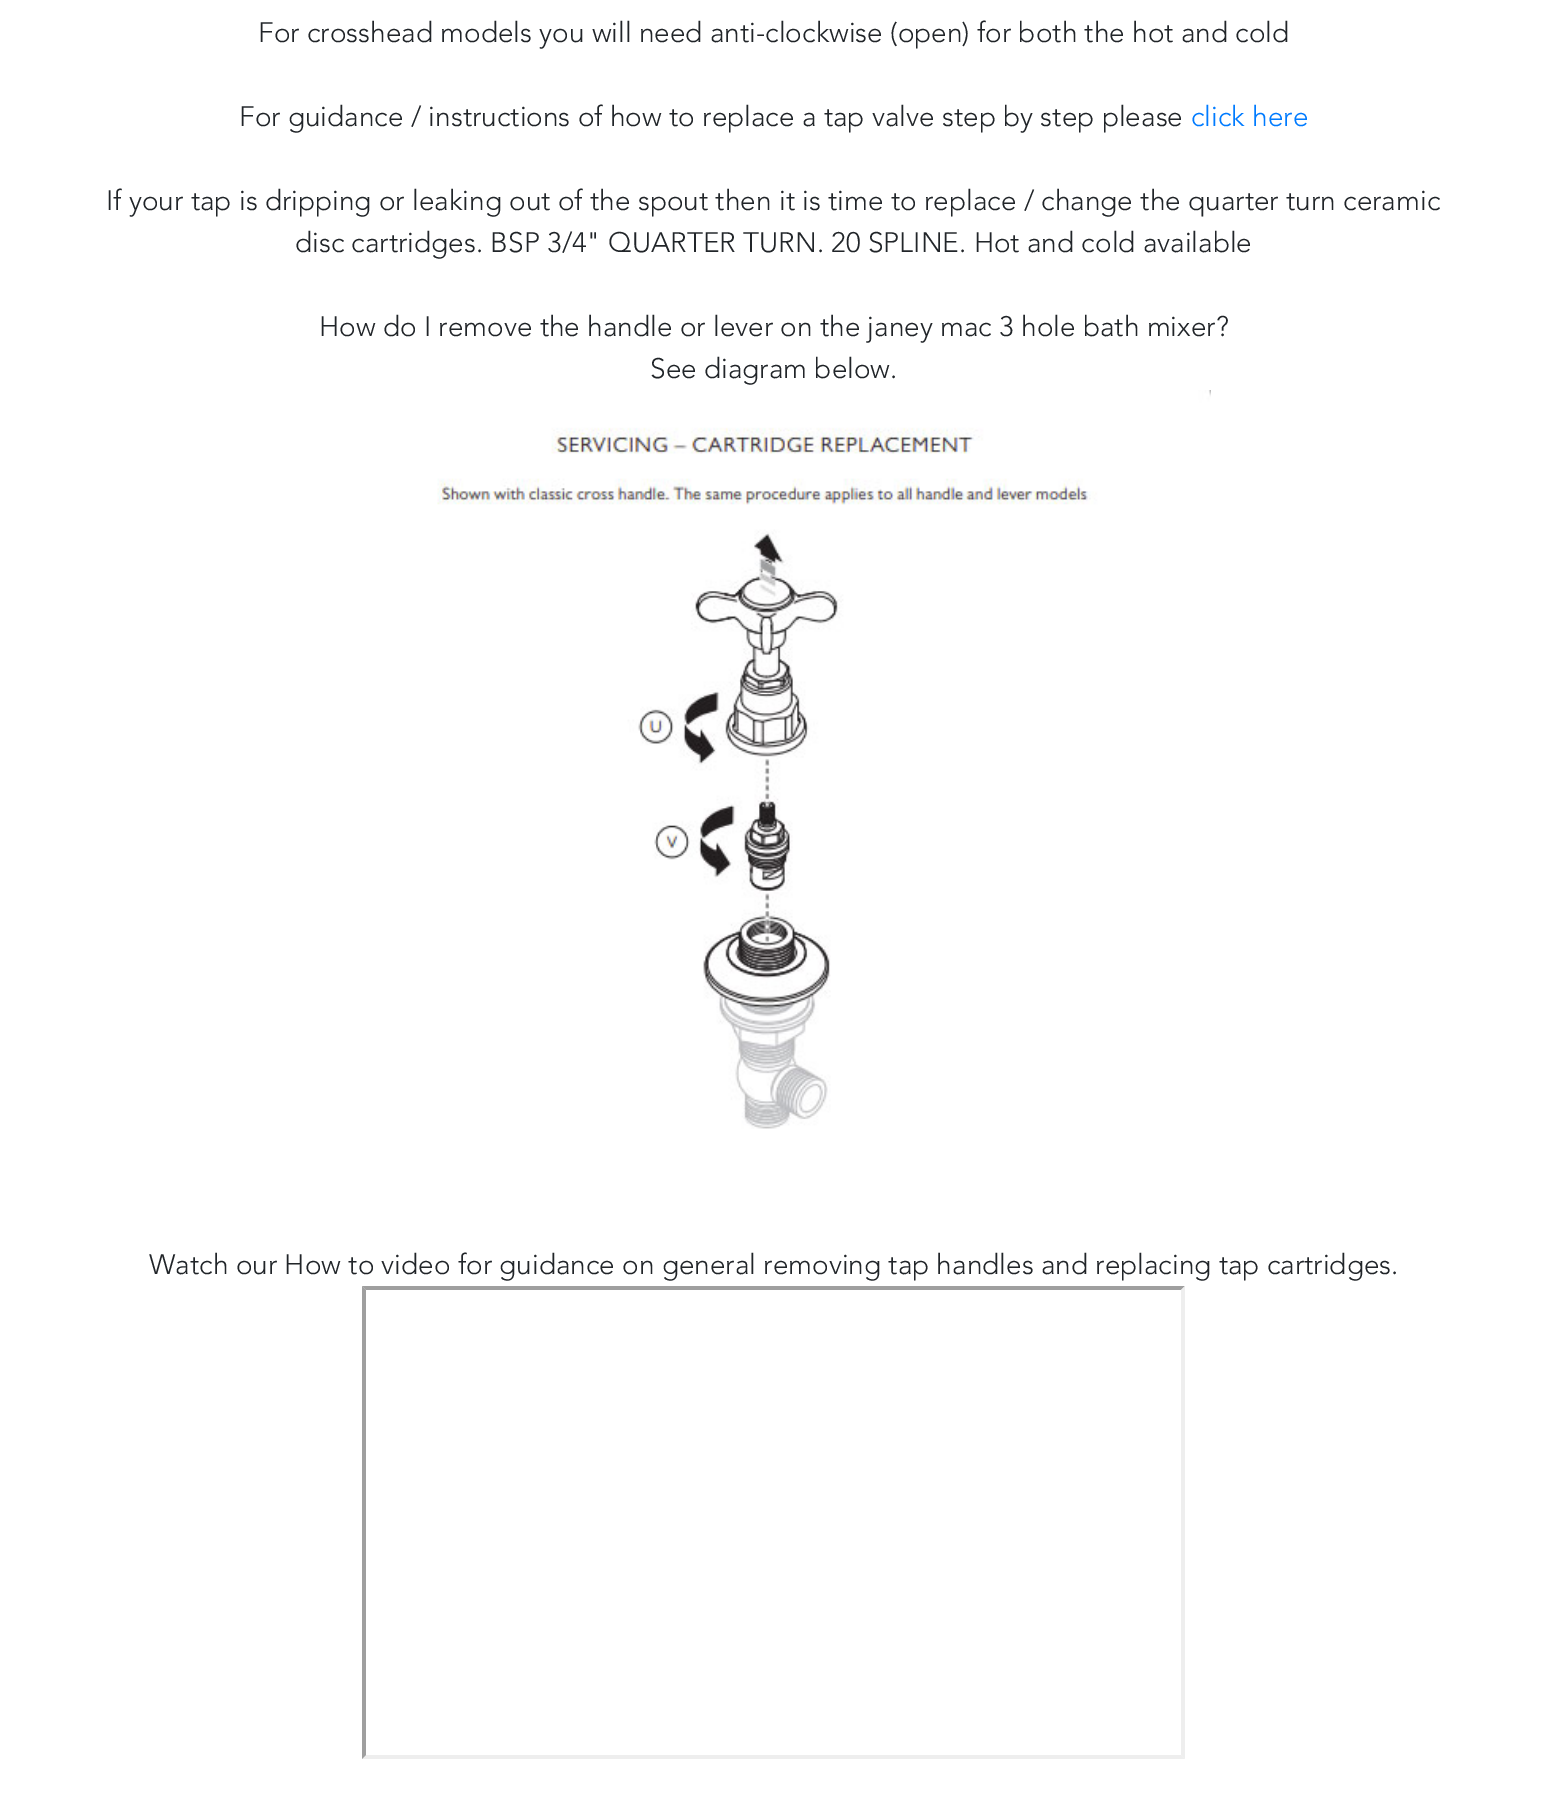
%!PS
<< /PageSize [1546 1819] >> setpagedevice
/rgb { 3 { 255 div 3 1 roll } repeat setrgbcolor } def
/font { [ exch dup neg 0 0 3 -1 roll 0 0 ] selectfont } def
/text { moveto show } def
/picture { 5 dict begin { /h /w /y /x /name } { exch def } forall
  gsave x y translate w h scale
  w h 8 [w 0 0 h 0 0] name (r) file false 3 colorimage grestore end } def
0 1819 translate 1 -1 scale
4 setmiterlimit
255 255 255 rgb
0 0 1546 1819 rectfill
(img_01.rgb) 437 390 774 739 picture
159 159 159 rgb
362 1286 moveto 823 0 rlineto -4 4 rlineto -815 0 rlineto closepath fill
238 238 238 rgb
1185 1286 moveto 0 473 rlineto -4 -4 rlineto 0 -465 rlineto closepath fill
1185 1759 moveto -823 0 rlineto 4 -4 rlineto 815 0 rlineto closepath fill
159 159 159 rgb
362 1759 moveto 0 -473 rlineto 4 4 rlineto 0 465 rlineto closepath fill
/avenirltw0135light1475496-Light 28 font
33 37 41 rgb
(For crosshead models you will need anti-clockwise \(open\) for both the hot and cold) 258 42 text
(For guidance / instructions of how to replace a tap valve step by step please) 239 126 text
0 123 255 rgb
(click here) 1191 126 text
33 37 41 rgb
(If your tap is dripping or leaking out of the spout then it is time to replace / change the quarter turn ceramic) 106 210 text
(disc cartridges. BSP 3/4" QUARTER TURN. 20 SPLINE. Hot and cold available) 295 252 text
(How do I remove the handle or lever on the janey mac 3 hole bath mixer?) 319 336 text
(See diagram below.) 650 378 text
(Watch our How to video for guidance on general removing tap handles and replacing tap cartridges.) 149 1274 text
showpage
